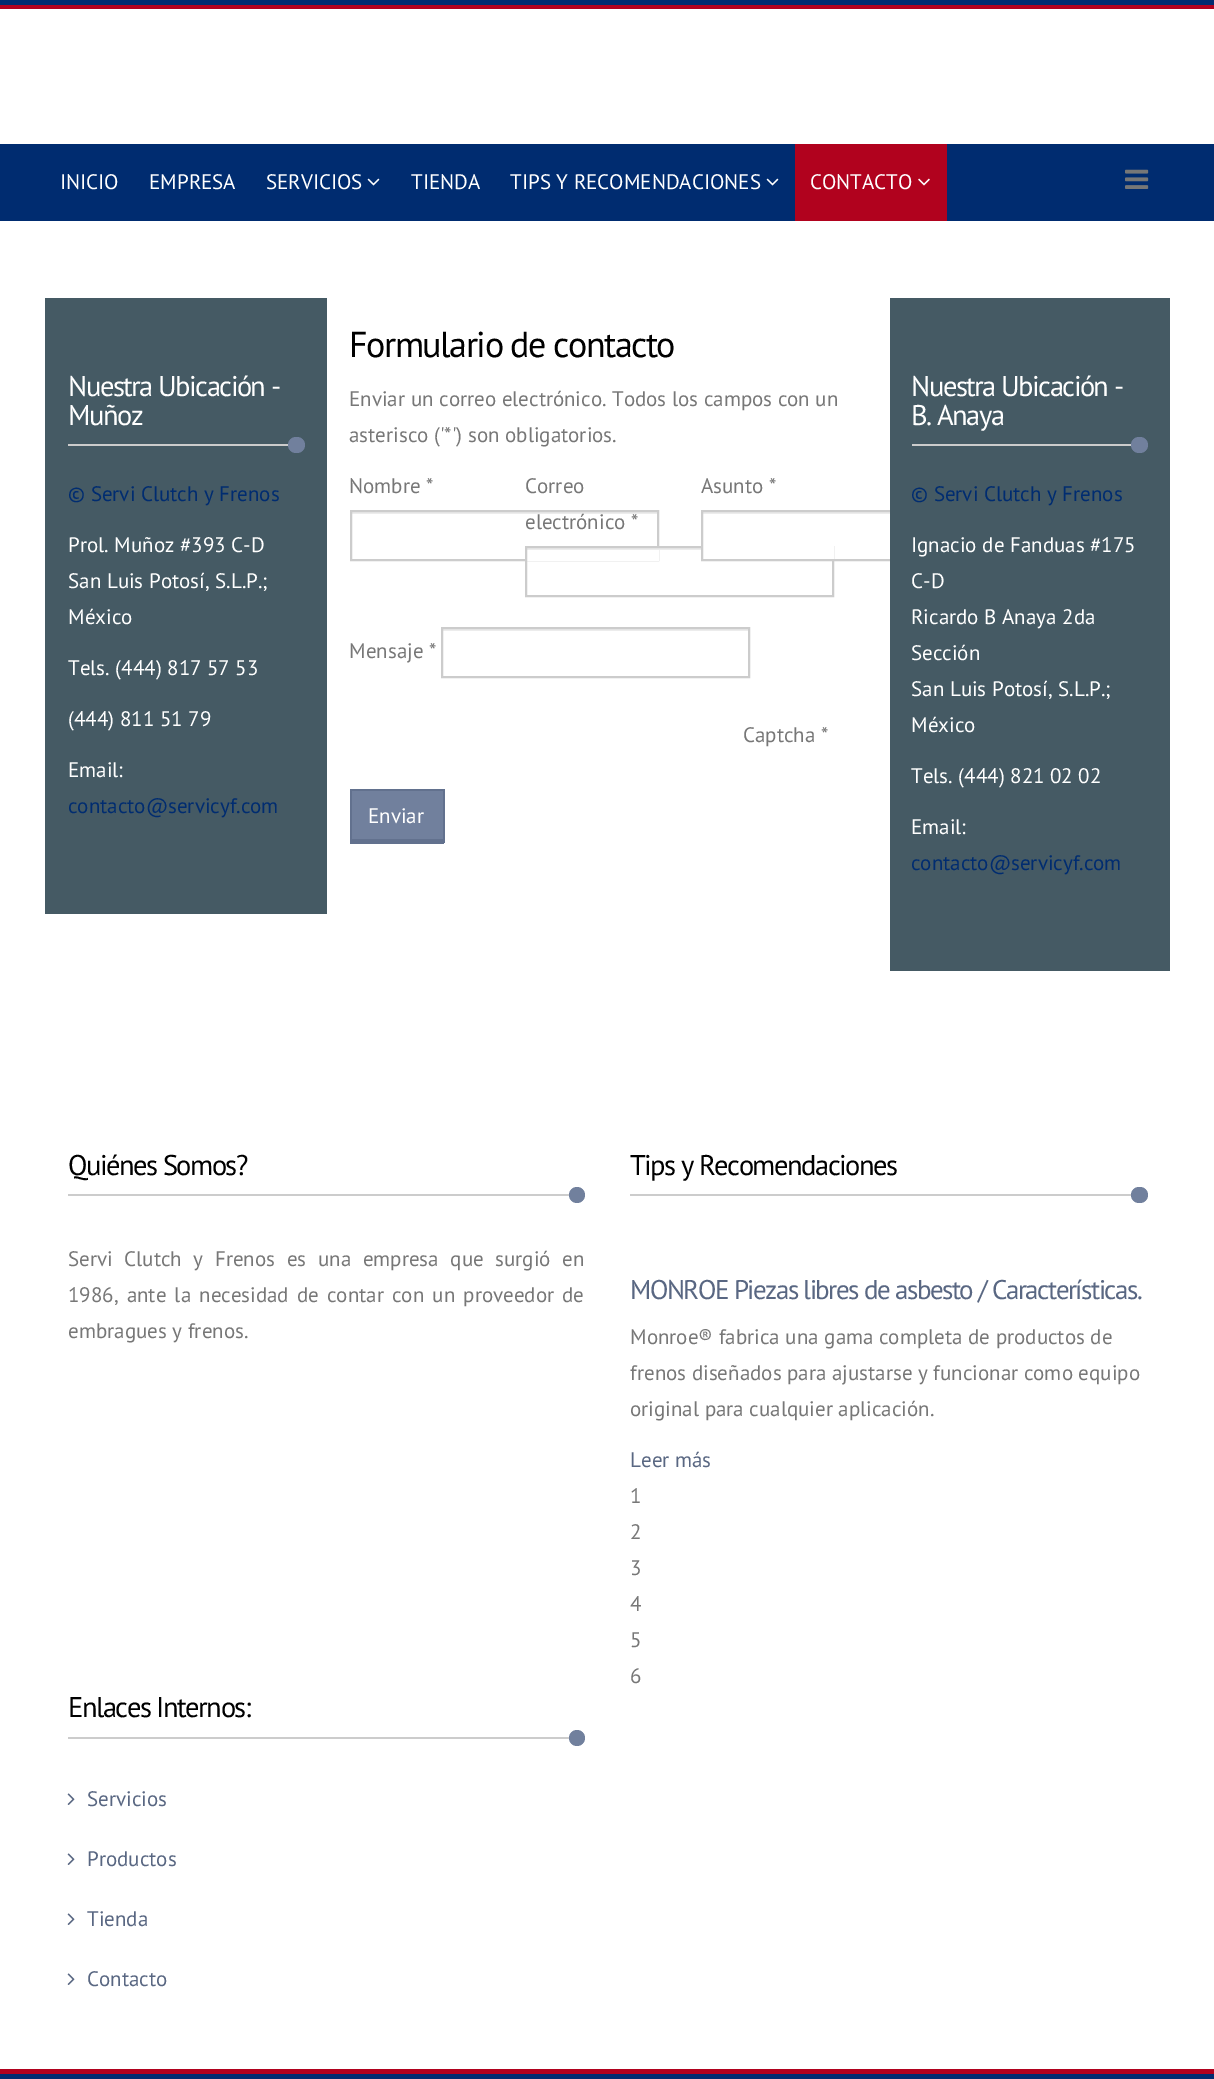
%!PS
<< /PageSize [1214 2079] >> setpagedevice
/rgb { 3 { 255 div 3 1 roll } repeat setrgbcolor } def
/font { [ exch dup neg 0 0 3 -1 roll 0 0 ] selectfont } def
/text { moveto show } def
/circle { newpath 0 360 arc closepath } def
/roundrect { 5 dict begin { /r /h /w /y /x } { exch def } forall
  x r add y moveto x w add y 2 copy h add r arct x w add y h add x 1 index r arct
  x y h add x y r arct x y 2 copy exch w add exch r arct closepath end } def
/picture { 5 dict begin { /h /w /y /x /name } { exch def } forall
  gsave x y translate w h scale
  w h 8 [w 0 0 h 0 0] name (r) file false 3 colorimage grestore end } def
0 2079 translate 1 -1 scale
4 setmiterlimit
255 255 255 rgb
0 0 1214 2079 rectfill
0 44 112 rgb
0 0 1214 5 rectfill
177 2 30 rgb
0 5 1214 4 rectfill
0 44 112 rgb
0 144 1214 77 rectfill
(img_01.rgb) 367 178 13 8 picture
(img_01.rgb) 766 178 13 8 picture
177 2 30 rgb
795 144 152 77 rectfill
(img_02.rgb) 918 178 12 8 picture
(img_03.rgb) 1125 169 24 20 picture
69 90 100 rgb
45 298 282 616 rectfill
204 204 204 rgb
68 444 237 2 rectfill
113 128 157 rgb
288 437 17 16 8 roundrect fill
236 236 236 rgb
351 512 306 2 rectfill
204 204 204 rgb
2 setlinewidth
351 511 307 49 rectstroke
255 255 255 rgb
527 550 132 11 rectfill
236 236 236 rgb
527 548 174 2 rectfill
204 204 204 rgb
526 547 307 49 rectstroke
255 255 255 rgb
703 546 131 13 rectfill
236 236 236 rgb
702 512 188 2 rectfill
204 204 204 rgb
702 511 307 49 rectstroke
236 236 236 rgb
443 629 306 2 rectfill
204 204 204 rgb
442 628 307 49 rectstroke
113 128 157 rgb
352 791 91 48 rectfill
98 113 142 rgb
350 789 94 2 rectfill
443 789 2 54 rectfill
350 839 94 5 rectfill
350 789 2 54 rectfill
69 90 100 rgb
890 298 280 673 rectfill
204 204 204 rgb
912 444 236 2 rectfill
113 128 157 rgb
1131 437 17 16 8 roundrect fill
204 204 204 rgb
68 1194 517 2 rectfill
113 128 157 rgb
577 1195 8 circle fill
204 204 204 rgb
630 1194 518 2 rectfill
113 128 157 rgb
1131 1187 17 16 8 roundrect fill
204 204 204 rgb
68 1737 517 2 rectfill
113 128 157 rgb
577 1738 8 circle fill
(img_04.rgb) 67 1793 8 12 picture
(img_04.rgb) 67 1853 8 12 picture
(img_04.rgb) 67 1913 8 12 picture
(img_04.rgb) 67 1973 8 12 picture
0 44 112 rgb
0 2074 1214 5 rectfill
177 2 30 rgb
0 2069 1214 5 rectfill
/PTSans-Regular 21 font
255 255 255 rgb
(INICIO) 60 189 text
(EMPRESA) 149 189 text
(SERVICIOS) 266 189 text
(TIENDA) 411 189 text
(TIPS Y RECOMENDACIONES) 510 189 text
(CONTACTO) 810 189 text
/PTSans-Regular 28.5 font
68 396 moveto -1.5 0 (Nuestra Ubicación -) ashow
68 425 moveto -1.5 0 (Muñoz) ashow
/PTSans-Regular 21 font
0 44 112 rgb
(© Servi Clutch y Frenos) 68 501 text
255 255 255 rgb
(Prol. Muñoz #393 C-D) 68 552 text
(San Luis Potosí, S.L.P.;) 68 588 text
(México) 68 624 text
(Tels. \(444\) 817 57 53) 68 675 text
(\(444\) 811 51 79) 68 726 text
(Email:) 68 777 text
0 44 112 rgb
(contacto@servicyf.com) 68 813 text
/PTSans-Regular 36 font
0 0 0 rgb
349 357 moveto -1.5 0 (Formulario de contacto) ashow
/PTSans-Regular 21 font
119 119 119 rgb
(Enviar un correo electrónico. Todos los campos con un) 349 406 text
(asterisco \('*'\) son obligatorios.) 349 442 text
(Nombre *) 349 493 text
(Correo) 525 493 text
(electrónico *) 525 529 text
(Asunto *) 701 493 text
(Mensaje *) 349 658 text
(Captcha *) 743 742 text
255 255 255 rgb
(Enviar) 368 823 text
/PTSans-Regular 28.5 font
911 396 moveto -1.5 0 (Nuestra Ubicación -) ashow
911 425 moveto -1.5 0 (B. Anaya) ashow
/PTSans-Regular 21 font
0 44 112 rgb
(© Servi Clutch y Frenos) 911 501 text
255 255 255 rgb
(Ignacio de Fanduas #175) 911 552 text
(C-D) 911 588 text
(Ricardo B Anaya 2da) 911 624 text
(Sección) 911 660 text
(San Luis Potosí, S.L.P.;) 911 696 text
(México) 911 732 text
(Tels. \(444\) 821 02 02) 911 783 text
(Email:) 911 834 text
0 44 112 rgb
(contacto@servicyf.com) 911 870 text
/PTSans-Regular 28.5 font
0 0 0 rgb
68 1175 moveto -1.5 0 (Quiénes Somos?) ashow
/PTSans-Regular 21 font
119 119 119 rgb
68 1266 moveto 6 0 32 (Servi Clutch y Frenos es una empresa que surgió en) widthshow
68 1302 moveto 2.5 0 32 (1986, ante la necesidad de contar con un proveedor de) widthshow
(embragues y frenos.) 68 1338 text
/PTSans-Regular 28.5 font
0 0 0 rgb
630 1175 moveto -1.5 0 (Tips y Recomendaciones) ashow
/PTSans-Regular 27 font
89 103 130 rgb
630 1299 moveto -1.5 0 (MONROE Piezas libres de asbesto / Características.) ashow
/PTSans-Regular 21 font
119 119 119 rgb
(Monroe® fabrica una gama completa de productos de) 630 1344 text
(frenos diseñados para ajustarse y funcionar como equipo) 630 1380 text
(original para cualquier aplicación.) 630 1416 text
89 103 130 rgb
(Leer más) 630 1467 text
119 119 119 rgb
(1) 630 1503 text
(2) 630 1539 text
(3) 630 1575 text
(4) 630 1611 text
(5) 630 1647 text
(6) 630 1683 text
/PTSans-Regular 28.5 font
0 0 0 rgb
68 1717 moveto -1.5 0 (Enlaces Internos:) ashow
/PTSans-Regular 21 font
89 103 130 rgb
(Servicios) 87 1806 text
(Productos) 87 1866 text
(Tienda) 87 1926 text
(Contacto) 87 1986 text
showpage
